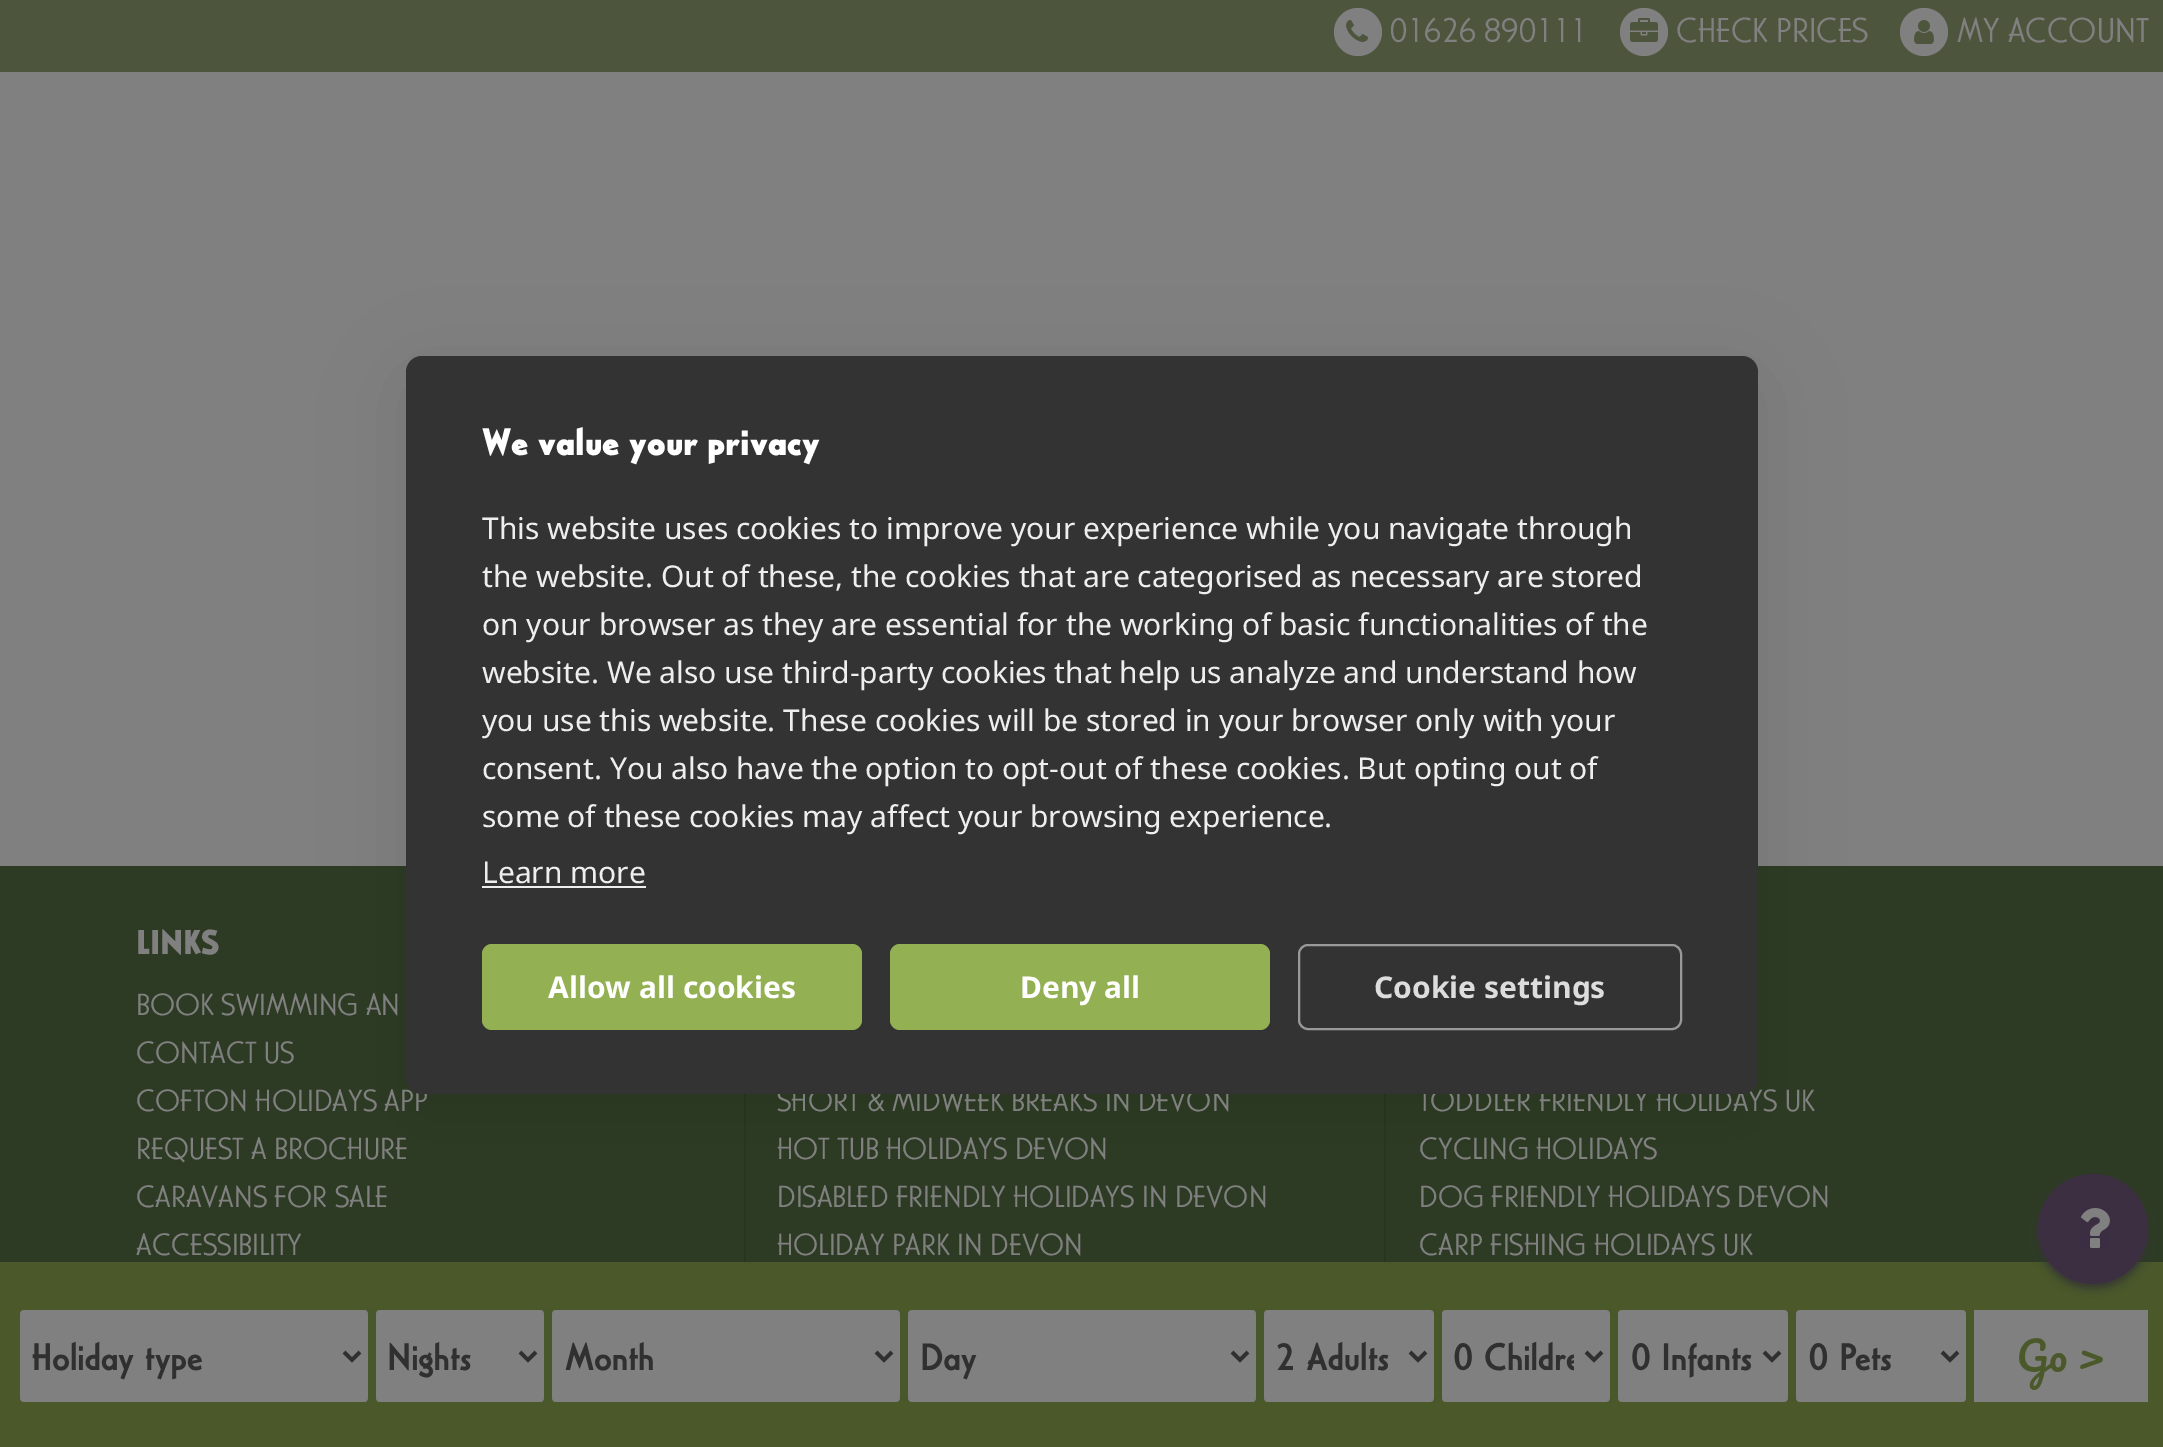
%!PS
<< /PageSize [2163 1447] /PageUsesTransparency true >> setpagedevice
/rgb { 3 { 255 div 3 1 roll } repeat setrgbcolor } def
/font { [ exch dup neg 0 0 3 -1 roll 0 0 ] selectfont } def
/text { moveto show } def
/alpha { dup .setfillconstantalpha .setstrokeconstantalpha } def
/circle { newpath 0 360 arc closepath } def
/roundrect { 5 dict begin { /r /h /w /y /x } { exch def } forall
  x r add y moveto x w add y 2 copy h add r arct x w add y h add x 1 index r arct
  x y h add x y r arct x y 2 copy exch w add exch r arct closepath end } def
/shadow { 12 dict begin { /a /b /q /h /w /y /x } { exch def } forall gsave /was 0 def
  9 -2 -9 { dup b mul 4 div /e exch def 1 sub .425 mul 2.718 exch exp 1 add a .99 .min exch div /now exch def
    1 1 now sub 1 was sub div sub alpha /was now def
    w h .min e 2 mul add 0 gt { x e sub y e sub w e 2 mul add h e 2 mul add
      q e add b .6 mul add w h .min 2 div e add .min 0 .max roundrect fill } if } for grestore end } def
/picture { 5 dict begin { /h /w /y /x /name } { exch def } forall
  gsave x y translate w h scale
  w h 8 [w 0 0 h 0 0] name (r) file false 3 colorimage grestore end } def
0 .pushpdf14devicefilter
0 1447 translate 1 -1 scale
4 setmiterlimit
128 128 128 rgb
0 0 2163 1447 rectfill
77 85 61 rgb
0 0 2163 72 rectfill
128 128 128 rgb
1358 32 24 circle fill
(img_01.rgb) 1346 20 22 22 picture
1644 32 24 circle fill
(img_02.rgb) 1630 18 28 24 picture
1924 32 24 circle fill
(img_03.rgb) 1914 20 20 24 picture
74 88 42 rgb
0 1262 2163 185 rectfill
(img_04.rgb) 20 1310 2128 92 picture
46 59 36 rgb
0 866 2163 396 rectfill
41 53 33 rgb
744 1094 2 168 rectfill
1384 1094 2 168 rectfill
0 0 0 rgb
406 376 1352 738 16 40 0.1 shadow
51 51 51 rgb
2038 1178 110 110 55 5 1 shadow
61 47 66 rgb
2093 1229 55 circle fill
(img_05.rgb) 2081 1208 29 40 picture
/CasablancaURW-Light 36 font
128 128 128 rgb
(01626 890111) 1390 42 text
(CHECK PRICES) 1676 42 text
(MY ACCOUNT) 1957 42 text
/CasablancaURW-Bold 36 font
(LINKS) 136 954 text
/CasablancaURW-Light 32 font
(BOOK SWIMMING AN) 136 1015 text
(CONTACT US) 136 1063 text
(COFTON HOLIDAYS APP) 136 1111 text
(REQUEST A BROCHURE) 136 1159 text
(CARAVANS FOR SALE) 136 1207 text
(ACCESSIBILITY) 136 1255 text
(SHORT & MIDWEEK BREAKS IN DEVON) 777 1111 text
(HOT TUB HOLIDAYS DEVON) 777 1159 text
(DISABLED FRIENDLY HOLIDAYS IN DEVON) 777 1207 text
(HOLIDAY PARK IN DEVON) 777 1255 text
(TODDLER FRIENDLY HOLIDAYS UK) 1419 1111 text
51 51 51 rgb
406 356 1352 738 16 roundrect fill
153 153 153 rgb
2 setlinewidth
1299 945 382 84 9 roundrect stroke
/NotoSans-Bold 30 font
221 221 221 rgb
(Cookie settings) 1374 998 text
147 176 83 rgb
890 944 380 86 10 roundrect fill
255 255 255 rgb
(Deny all) 1020 998 text
147 176 83 rgb
482 944 380 86 10 roundrect fill
255 255 255 rgb
(Allow all cookies) 548 998 text
/NotoSans-Regular 30 font
238 238 238 rgb
(Learn more) 482 883 text
482 886 164 2 rectfill
(some of these cookies may affect your browsing experience.) 482 827 text
(consent. You also have the option to opt-out of these cookies. But opting out of) 482 779 text
(you use this website. These cookies will be stored in your browser only with your) 482 731 text
(website. We also use third-party cookies that help us analyze and understand how) 482 683 text
(on your browser as they are essential for the working of basic functionalities of the) 482 635 text
(the website. Out of these, the cookies that are categorised as necessary are stored) 482 587 text
(This website uses cookies to improve your experience while you navigate through) 482 539 text
/CasablancaURW-Bold 40 font
255 255 255 rgb
(We value your privacy) 482 455 text
/CasablancaURW-Light 32 font
128 128 128 rgb
(CYCLING HOLIDAYS) 1419 1159 text
(DOG FRIENDLY HOLIDAYS DEVON) 1419 1207 text
(CARP FISHING HOLIDAYS UK) 1419 1255 text
.poppdf14devicefilter showpage
